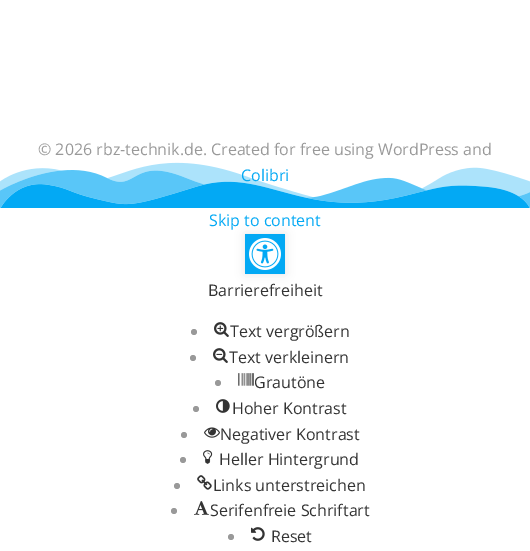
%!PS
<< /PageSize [530 551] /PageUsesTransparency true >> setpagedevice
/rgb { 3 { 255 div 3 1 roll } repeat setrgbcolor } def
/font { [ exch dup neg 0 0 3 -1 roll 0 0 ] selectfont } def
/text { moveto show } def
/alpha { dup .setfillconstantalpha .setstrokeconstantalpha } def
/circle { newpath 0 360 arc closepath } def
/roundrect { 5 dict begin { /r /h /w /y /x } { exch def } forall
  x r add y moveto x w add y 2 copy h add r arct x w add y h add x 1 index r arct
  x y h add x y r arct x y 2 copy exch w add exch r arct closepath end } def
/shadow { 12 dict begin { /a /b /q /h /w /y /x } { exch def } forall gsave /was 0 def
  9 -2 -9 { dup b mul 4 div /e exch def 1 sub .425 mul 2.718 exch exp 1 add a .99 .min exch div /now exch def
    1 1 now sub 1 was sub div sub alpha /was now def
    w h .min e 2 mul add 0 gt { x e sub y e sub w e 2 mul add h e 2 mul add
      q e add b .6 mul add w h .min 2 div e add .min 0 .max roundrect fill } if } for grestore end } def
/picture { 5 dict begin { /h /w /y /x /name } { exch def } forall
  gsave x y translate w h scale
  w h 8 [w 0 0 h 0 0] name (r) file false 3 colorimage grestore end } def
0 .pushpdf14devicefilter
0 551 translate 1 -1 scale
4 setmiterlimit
255 255 255 rgb
0 0 530 551 rectfill
(img_01.rgb) 0 162 530 46 picture
0 0 0 rgb
245 234 40 40 0 5 0.1 shadow
3 169 244 rgb
245 234 40 40 rectfill
(img_02.rgb) 249 238 32 32 picture
153 153 153 rgb
194 332 3 circle fill
(img_03.rgb) 214 322 15 15 picture
193 358 3 circle fill
(img_04.rgb) 213 348 15 15 picture
218 383 3 circle fill
(img_05.rgb) 238 373 16 13 picture
196 409 3 circle fill
(img_06.rgb) 216 399 14 14 picture
184 435 3 circle fill
(img_07.rgb) 204 427 16 11 picture
183 460 3 circle fill
(img_08.rgb) 203 450 10 14 picture
177 486 3 circle fill
(img_09.rgb) 197 475 15 15 picture
174 511 3 circle fill
(img_10.rgb) 194 501 15 14 picture
231 537 3 circle fill
(img_11.rgb) 251 527 14 14 picture
/OpenSans-Regular 16 font
(© 2026 rbz-technik.de. Created for free using WordPress and) 38 155 text
3 169 244 rgb
(Colibri) 241 181 text
(Skip to content) 209 226 text
51 51 51 rgb
(Barrierefreiheit) 208 296 text
(Text vergrößern) 230 337 text
(Text verkleinern) 229 363 text
(Grautöne) 254 388 text
(Hoher Kontrast) 232 414 text
(Negativer Kontrast) 220 440 text
(Heller Hintergrund) 219 465 text
(Links unterstreichen) 213 491 text
(Serifenfreie Schriftart) 210 516 text
(Reset) 271 542 text
.poppdf14devicefilter showpage
